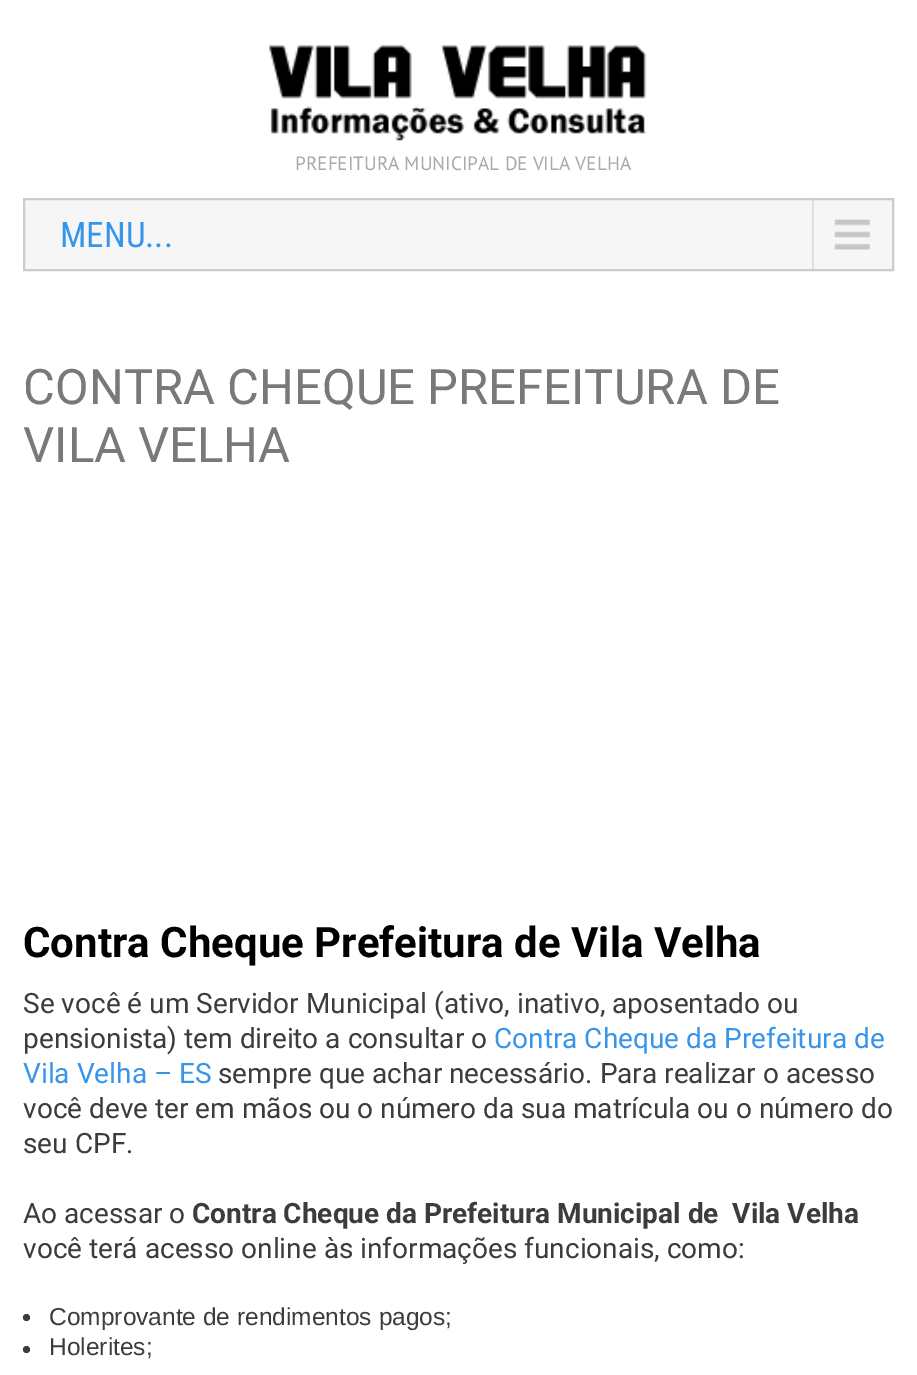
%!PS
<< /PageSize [917 1375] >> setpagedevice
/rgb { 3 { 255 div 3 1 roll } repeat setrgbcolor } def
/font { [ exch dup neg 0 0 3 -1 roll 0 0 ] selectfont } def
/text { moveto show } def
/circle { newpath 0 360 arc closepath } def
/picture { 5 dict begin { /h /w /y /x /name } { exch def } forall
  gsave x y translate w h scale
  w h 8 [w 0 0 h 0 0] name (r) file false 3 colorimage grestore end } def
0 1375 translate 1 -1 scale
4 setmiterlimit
255 255 255 rgb
0 0 917 1375 rectfill
(img_01.rgb) 269 45 378 96 picture
246 246 246 rgb
25 200 867 69 rectfill
(img_02.rgb) 812 197 59 75 picture
204 204 204 rgb
2 setlinewidth
24 199 869 71 rectstroke
60 60 60 rgb
26.5 1317.5 3.5 circle fill
26.5 1349.5 3.5 circle fill
/PTSans-Regular 19.25 font
169 169 169 rgb
(PREFEITURA MUNICIPAL DE VILA VELHA) 295 170 text
/RobotoCondensed-Regular 35 font
54 149 235 rgb
(MENU...) 60 247 text
/Roboto-Regular 49 font
121 121 121 rgb
(CONTRA CHEQUE PREFEITURA DE) 23 404 text
(VILA VELHA) 23 462 text
/Roboto-Bold 42 font
0 0 0 rgb
(Contra Cheque Prefeitura de Vila Velha) 23 957 text
/Roboto-Regular 28 font
60 60 60 rgb
(Se você é um Servidor Municipal \(ativo, inativo, aposentado ou) 23 1013 text
(pensionista\) tem direito a consultar o) 23 1048 text
54 149 235 rgb
(Contra Cheque da Prefeitura de) 494 1048 text
(Vila Velha – ES) 23 1083 text
60 60 60 rgb
(sempre que achar necessário. Para realizar o acesso) 218 1083 text
(você deve ter em mãos ou o número da sua matrícula ou o número do) 23 1118 text
(seu CPF.) 23 1153 text
(Ao acessar o) 23 1223 text
/Roboto-Bold 28 font
(Contra Cheque da Prefeitura Municipal de  Vila Velha) 192 1223 text
/Roboto-Regular 28 font
(você terá acesso online às informações funcionais, como:) 23 1258 text
/LiberationSans-Regular 24.5 font
(Comprovante de rendimentos pagos;) 49 1325 text
(Holerites;) 49 1355 text
showpage
